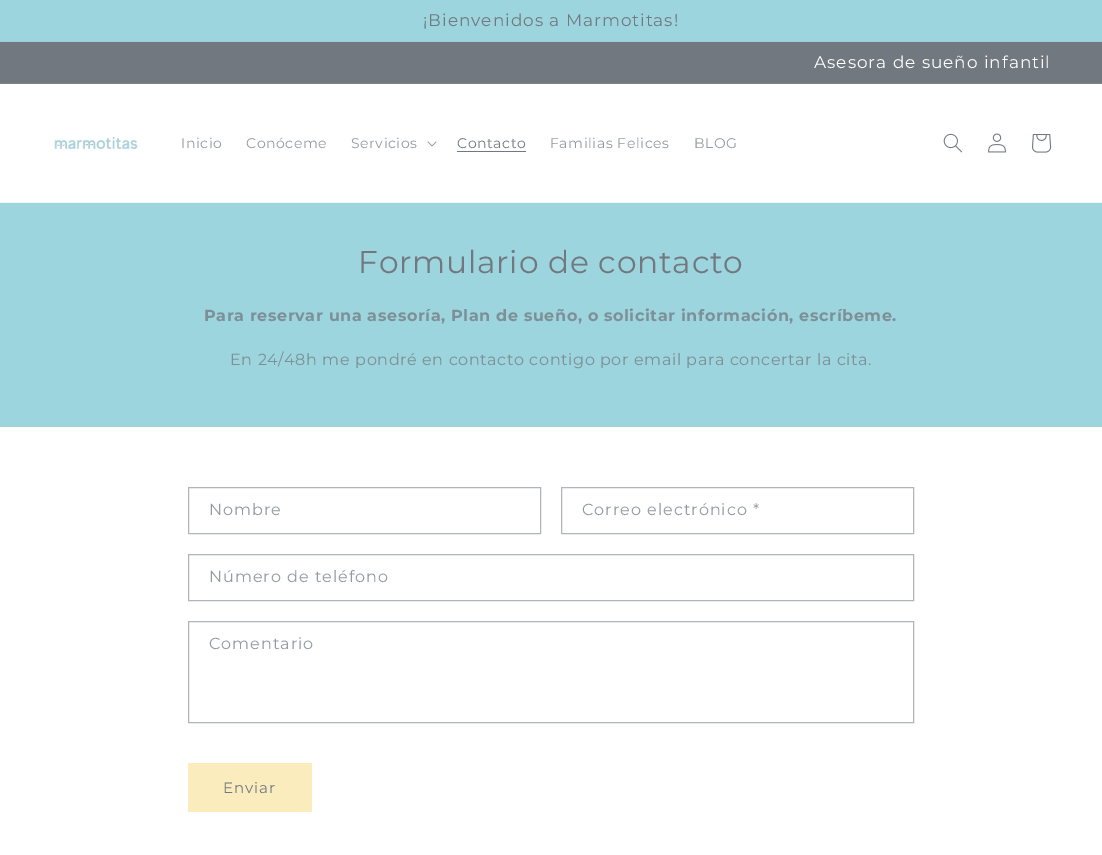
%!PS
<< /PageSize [1102 855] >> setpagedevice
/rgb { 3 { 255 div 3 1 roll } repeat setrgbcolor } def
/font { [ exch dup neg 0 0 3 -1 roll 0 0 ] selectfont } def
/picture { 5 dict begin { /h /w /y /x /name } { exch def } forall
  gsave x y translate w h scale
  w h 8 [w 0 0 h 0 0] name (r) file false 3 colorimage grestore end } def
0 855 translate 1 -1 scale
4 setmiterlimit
255 255 255 rgb
0 0 1102 855 rectfill
156 213 221 rgb
0 0 1102 41 rectfill
153 206 214 rgb
0 41 1102 1 rectfill
114 120 128 rgb
0 42 1102 41 rectfill
125 131 138 rgb
0 83 1102 1 rectfill
244 244 245 rgb
0 202 1102 1 rectfill
(img_01.rgb) 54 137 84 12 picture
(img_02.rgb) 427 141 10 6 picture
114 120 128 rgb
457 151 69 1 rectfill
(img_03.rgb) 943 133 19 20 picture
(img_04.rgb) 988 133 18 20 picture
(img_05.rgb) 1032 134 20 19 picture
156 213 221 rgb
0 203 1102 224 rectfill
177 181 185 rgb
188.5 487.5 352 46 rectstroke
561.5 487.5 352 46 rectstroke
188.5 554.5 725 46 rectstroke
188.5 621.5 725 101 rectstroke
250 236 189 rgb
188 763 124 49 rectfill
/Montserrat-Regular 16.9 font
114 120 128 rgb
423 26 moveto 1 0 (¡Bienvenidos a Marmotitas!) ashow
255 255 255 rgb
814 68 moveto 1 0 (Asesora de sueño infantil) ashow
/Montserrat-Regular 14 font
149 154 160 rgb
181 148 moveto 0.6 0 (Inicio) ashow
246 148 moveto 0.6 0 (Conóceme) ashow
351 148 moveto 0.6 0 (Servicios) ashow
114 120 128 rgb
457 148 moveto 0.6 0 (Contacto) ashow
149 154 160 rgb
550 148 moveto 0.6 0 (Familias Felices) ashow
694 148 moveto 0.6 0 (BLOG) ashow
/Montserrat-Regular 31.25 font
114 120 128 rgb
358 273 moveto 0.75 0 (Formulario de contacto) ashow
/Montserrat-Bold 16 font
125 143 151 rgb
204 321 moveto 0.6 0 (Para reservar una asesoría, Plan de sueño, o solicitar información, escríbeme.) ashow
/Montserrat-Regular 16 font
230 365 moveto 0.6 0 (En 24/48h me pondré en contacto contigo por email para concertar la cita.) ashow
149 154 160 rgb
209 515 moveto 1 0 (Nombre) ashow
582 515 moveto 1 0 (Correo electrónico *) ashow
209 582 moveto 1 0 (Número de teléfono) ashow
209 649 moveto 1 0 (Comentario) ashow
/Montserrat-Regular 15 font
114 120 128 rgb
223 793 moveto 1 0 (Enviar) ashow
showpage
